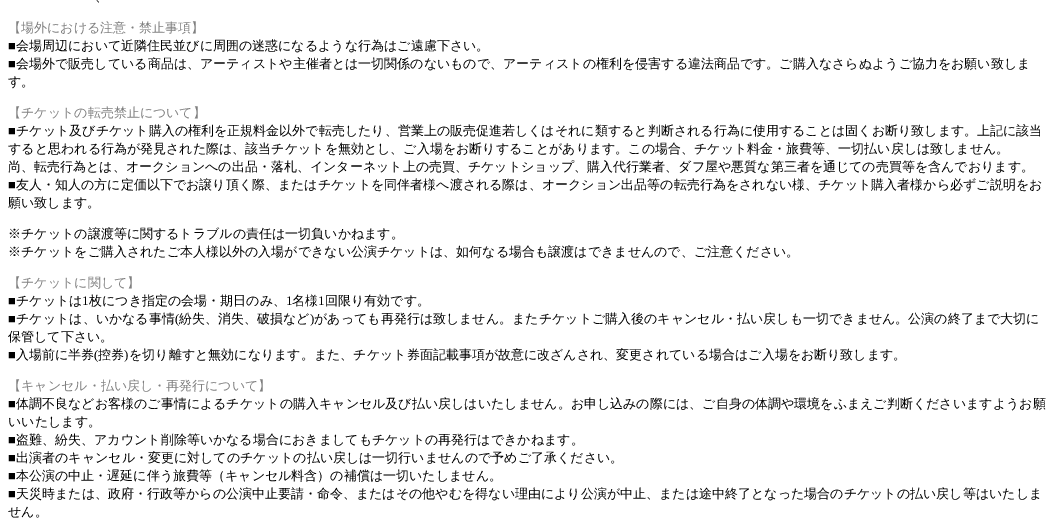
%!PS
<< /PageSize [1056 526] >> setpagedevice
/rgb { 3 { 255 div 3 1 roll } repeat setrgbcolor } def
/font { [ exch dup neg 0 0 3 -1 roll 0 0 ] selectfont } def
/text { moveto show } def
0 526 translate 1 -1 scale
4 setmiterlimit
255 255 255 rgb
0 0 1056 526 rectfill
/WenQuanYiZenHei-Medium 13 font
0 0 0 rgb
(、) 95 1 text
128 128 128 rgb
(【場外における注意・禁止事項】) 8 32 text
/LiberationSerif-Regular 13 font
0 0 0 rgb
(■) 8 50 text
/WenQuanYiZenHei-Medium 13 font
(会場周辺において近隣住民並びに周囲の迷惑になるような行為はご遠慮下さい。) 16 50 text
/LiberationSerif-Regular 13 font
(■) 8 68 text
/WenQuanYiZenHei-Medium 13 font
(会場外で販売している商品は、アーティストや主催者とは一切関係のないもので、アーティストの権利を侵害する違法商品です。ご購入なさらぬようご協力をお願い致しま) 16 68 text
(す。) 8 86 text
128 128 128 rgb
(【チケットの転売禁止について】) 8 117 text
/LiberationSerif-Regular 13 font
0 0 0 rgb
(■) 8 135 text
/WenQuanYiZenHei-Medium 13 font
(チケット及びチケット購入の権利を正規料金以外で転売したり、営業上の販売促進若しくはそれに類すると判断される行為に使用することは固くお断り致します。上記に該当) 16 135 text
(すると思われる行為が発見された際は、該当チケットを無効とし、ご入場をお断りすることがあります。この場合、チケット料金・旅費等、一切払い戻しは致しません。) 8 153 text
(尚、転売行為とは、オークションへの出品・落札、インターネット上の売買、チケットショップ、購入代行業者、ダフ屋や悪質な第三者を通じての売買等を含んでおります。) 8 171 text
/LiberationSerif-Regular 13 font
(■) 8 189 text
/WenQuanYiZenHei-Medium 13 font
(友人・知人の方に定価以下でお譲り頂く際、またはチケットを同伴者様へ渡される際は、オークション出品等の転売行為をされない様、チケット購入者様から必ずご説明をお) 16 189 text
(願い致します。) 8 207 text
(※チケットの譲渡等に関するトラブルの責任は一切負いかねます。) 8 238 text
(※チケットをご購入されたご本人様以外の入場ができない公演チケットは、如何なる場合も譲渡はできませんので、ご注意ください。) 8 256 text
128 128 128 rgb
(【チケットに関して】) 8 287 text
/LiberationSerif-Regular 13 font
0 0 0 rgb
(■) 8 305 text
/WenQuanYiZenHei-Medium 13 font
(チケットは) 16 305 text
/LiberationSerif-Regular 13 font
(1) 82 305 text
/WenQuanYiZenHei-Medium 13 font
(枚につき指定の会場・期日のみ、) 89 305 text
/LiberationSerif-Regular 13 font
(1) 286 305 text
/WenQuanYiZenHei-Medium 13 font
(名様) 292 305 text
/LiberationSerif-Regular 13 font
(1) 318 305 text
/WenQuanYiZenHei-Medium 13 font
(回限り有効です。) 325 305 text
/LiberationSerif-Regular 13 font
(■) 8 323 text
/WenQuanYiZenHei-Medium 13 font
(チケットは、いかなる事情) 16 323 text
/LiberationSerif-Regular 13 font
(\() 175 323 text
/WenQuanYiZenHei-Medium 13 font
(紛失、消失、破損など) 179 323 text
/LiberationSerif-Regular 13 font
(\)) 310 323 text
/WenQuanYiZenHei-Medium 13 font
(があっても再発行は致しません。またチケットご購入後のキャンセル・払い戻しも一切できません。公演の終了まで大切に) 314 323 text
(保管して下さい。) 8 341 text
/LiberationSerif-Regular 13 font
(■) 8 359 text
/WenQuanYiZenHei-Medium 13 font
(入場前に半券) 16 359 text
/LiberationSerif-Regular 13 font
(\() 94 359 text
/WenQuanYiZenHei-Medium 13 font
(控券) 98 359 text
/LiberationSerif-Regular 13 font
(\)) 124 359 text
/WenQuanYiZenHei-Medium 13 font
(を切り離すと無効になります。また、チケット券面記載事項が故意に改ざんされ、変更されている場合はご入場をお断り致します。) 129 359 text
128 128 128 rgb
(【キャンセル・払い戻し・再発行について】) 8 390 text
/LiberationSerif-Regular 13 font
0 0 0 rgb
(■) 8 408 text
/WenQuanYiZenHei-Medium 13 font
(体調不良などお客様のご事情によるチケットの購入キャンセル及び払い戻しはいたしません。お申し込みの際には、ご自身の体調や環境をふまえご判断くださいますようお願) 16 408 text
(いいたします。) 8 426 text
/LiberationSerif-Regular 13 font
(■) 8 444 text
/WenQuanYiZenHei-Medium 13 font
(盗難、紛失、アカウント削除等いかなる場合におきましてもチケットの再発行はできかねます。) 16 444 text
/LiberationSerif-Regular 13 font
(■) 8 462 text
/WenQuanYiZenHei-Medium 13 font
(出演者のキャンセル・変更に対してのチケットの払い戻しは一切行いませんので予めご了承ください。) 16 462 text
/LiberationSerif-Regular 13 font
(■) 8 480 text
/WenQuanYiZenHei-Medium 13 font
(本公演の中止・遅延に伴う旅費等（キャンセル料含）の補償は一切いたしません。) 16 480 text
/LiberationSerif-Regular 13 font
(■) 8 498 text
/WenQuanYiZenHei-Medium 13 font
(天災時または、政府・行政等からの公演中止要請・命令、またはその他やむを得ない理由により公演が中止、または途中終了となった場合のチケットの払い戻し等はいたしま) 16 498 text
(せん。) 8 516 text
showpage
